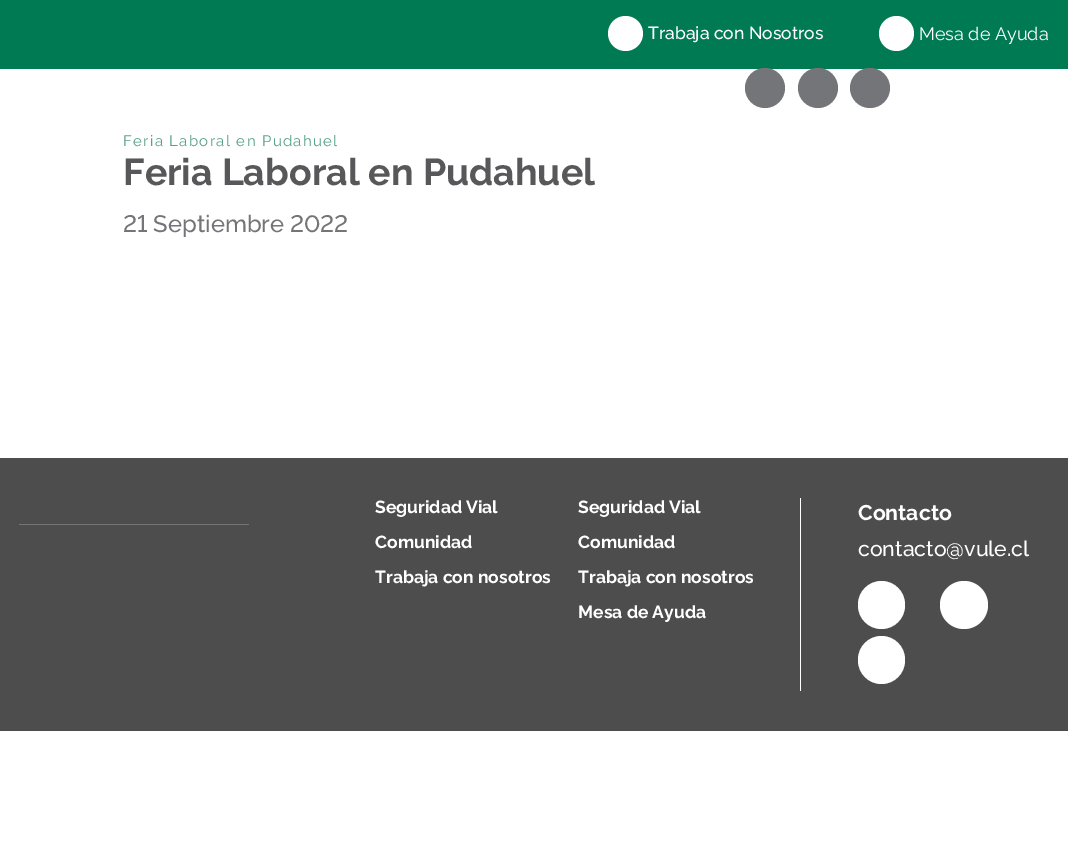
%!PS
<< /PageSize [1068 847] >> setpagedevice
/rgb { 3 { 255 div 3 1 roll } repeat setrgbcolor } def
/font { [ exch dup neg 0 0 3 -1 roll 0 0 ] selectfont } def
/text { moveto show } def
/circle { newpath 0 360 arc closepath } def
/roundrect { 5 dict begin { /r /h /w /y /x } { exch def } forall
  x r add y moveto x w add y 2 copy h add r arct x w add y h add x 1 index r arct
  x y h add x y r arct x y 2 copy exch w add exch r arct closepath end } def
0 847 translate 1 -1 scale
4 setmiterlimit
255 255 255 rgb
0 0 1068 847 rectfill
0 122 83 rgb
0 0 1068 69 rectfill
255 255 255 rgb
625.5 33.5 17.5 circle fill
896.5 33.5 17.5 circle fill
116 117 120 rgb
765 88 20 circle fill
818 88 20 circle fill
870 88 20 circle fill
77 77 77 rgb
0 458 1068 273 rectfill
116 117 120 rgb
19 524 230 1 rectfill
255 255 255 rgb
800 498 1 193 rectfill
858 581 47 48 23.5 roundrect fill
964 605 24 circle fill
858 636 47 48 23.5 roundrect fill
/Raleway-Medium 17.5 font
(Trabaja con Nosotros) 648 39 text
/Raleway-Regular 18 font
(Mesa de Ayuda) 919 40 text
/Raleway-Regular 15 font
87 161 136 rgb
123 146 moveto 1.35 0 (Feria Laboral en Pudahuel) ashow
/Raleway-Bold 37.5 font
88 88 90 rgb
(Feria Laboral en Pudahuel) 123 185 text
/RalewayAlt-Medium 23.75 font
116 117 120 rgb
(21 Septiembre 2022) 123 232 text
/Raleway-Bold 17.5 font
255 255 255 rgb
(Seguridad Vial) 375 513 text
(Comunidad) 375 548 text
(Trabaja con nosotros) 375 583 text
(Seguridad Vial) 578 513 text
(Comunidad) 578 548 text
(Trabaja con nosotros) 578 583 text
(Mesa de Ayuda) 578 618 text
/Raleway-Bold 21.25 font
(Contacto) 858 520 text
/Raleway-Medium 21.25 font
(contacto@vule.cl) 858 556 text
showpage
